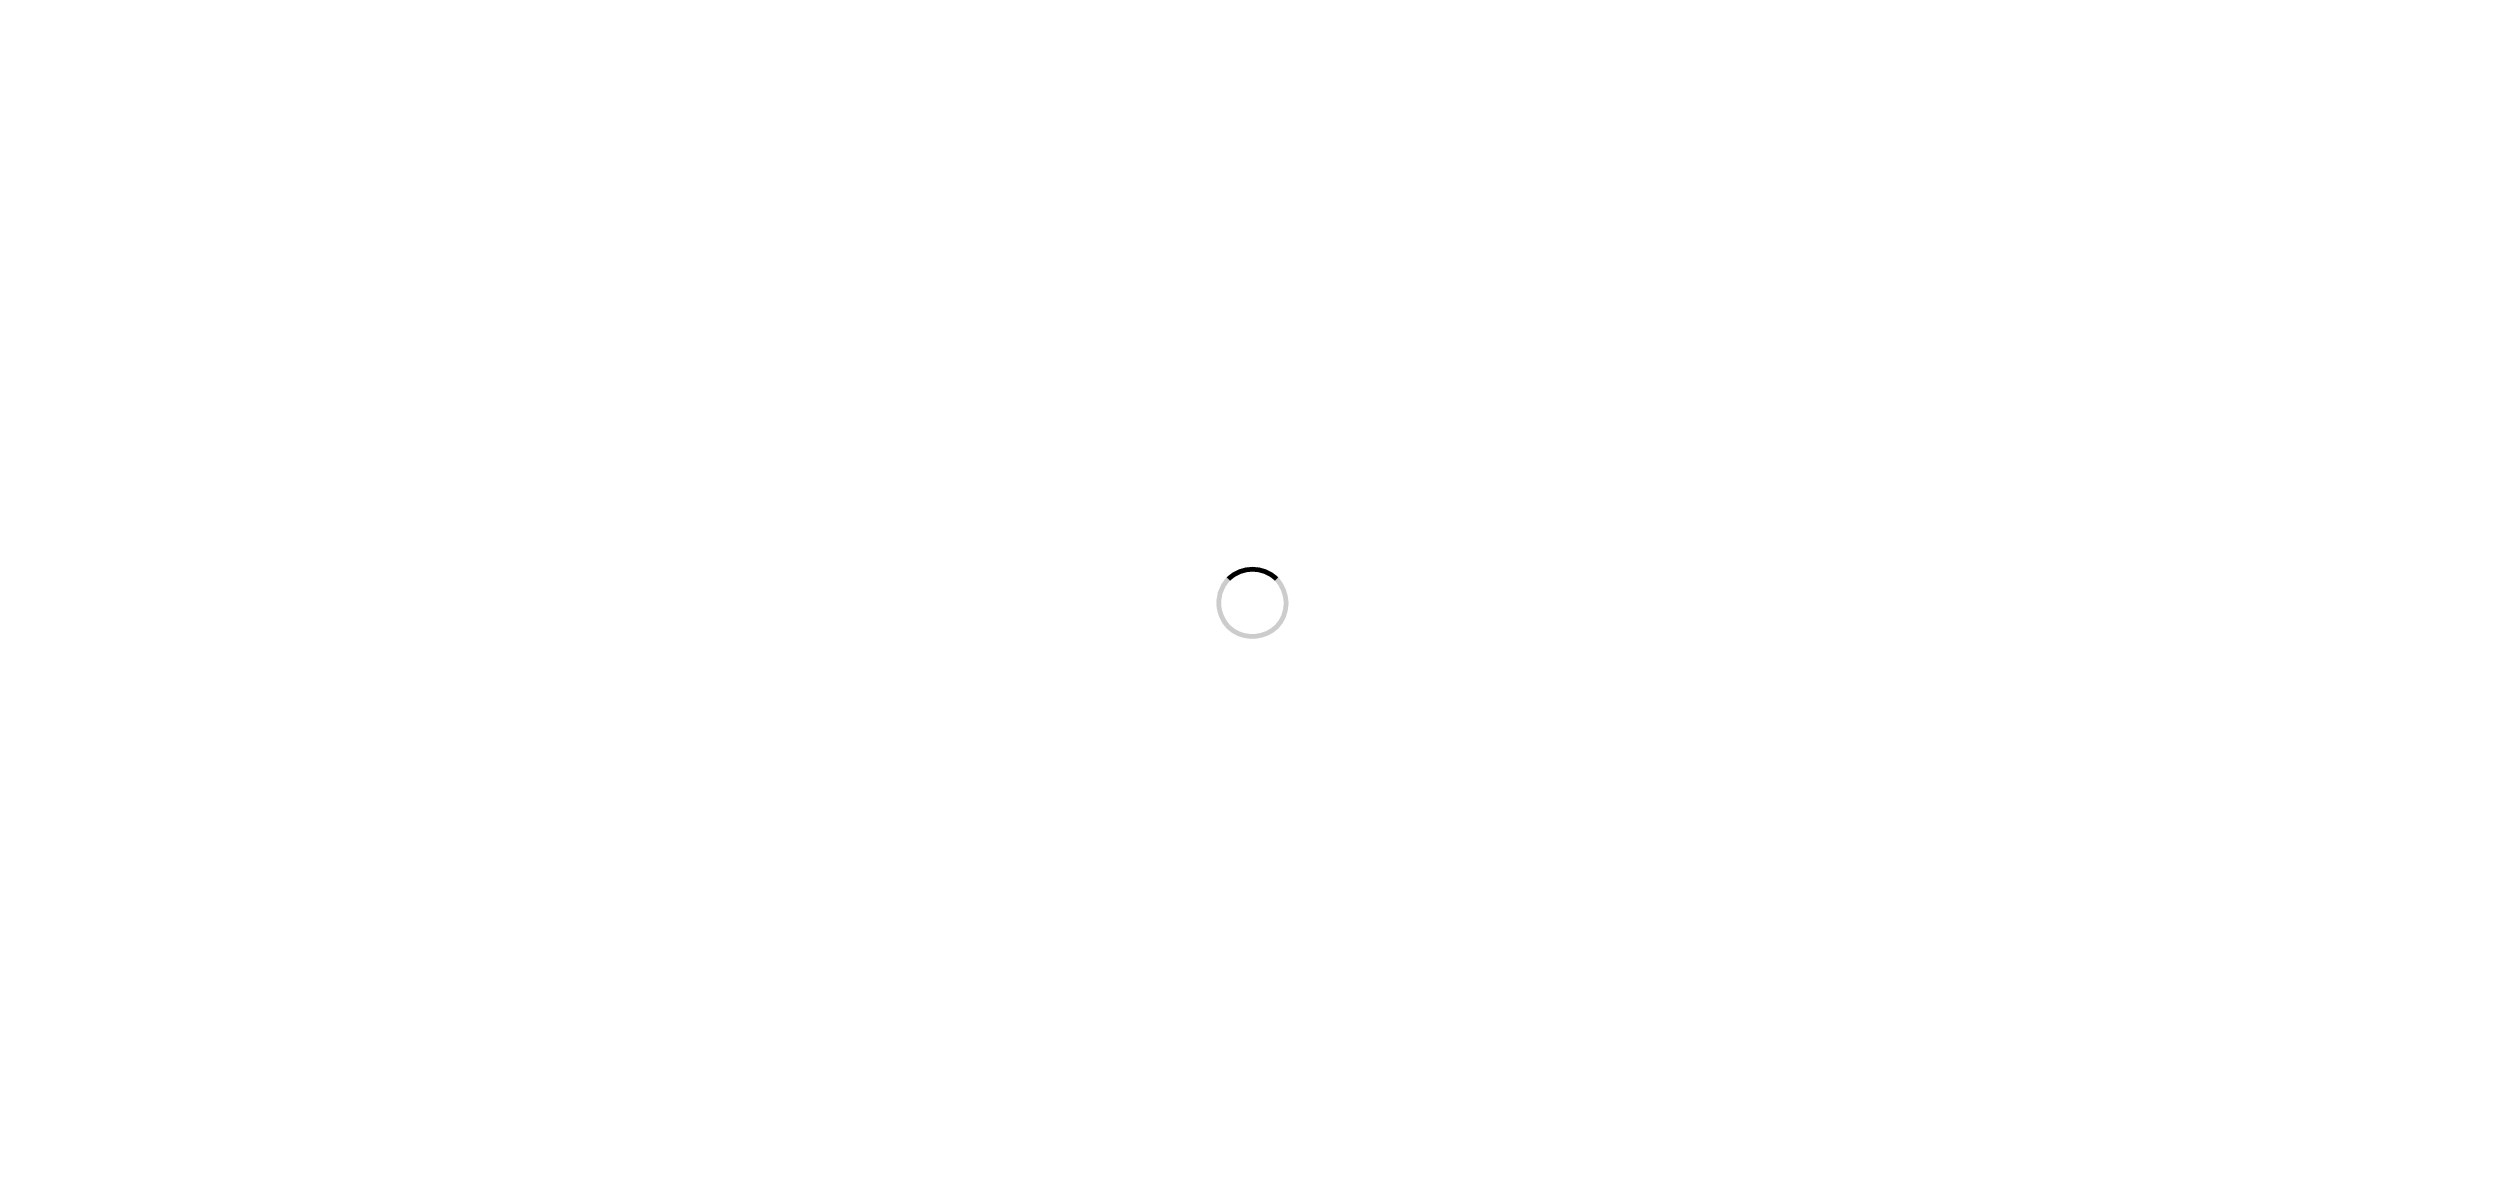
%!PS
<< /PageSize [2504 1204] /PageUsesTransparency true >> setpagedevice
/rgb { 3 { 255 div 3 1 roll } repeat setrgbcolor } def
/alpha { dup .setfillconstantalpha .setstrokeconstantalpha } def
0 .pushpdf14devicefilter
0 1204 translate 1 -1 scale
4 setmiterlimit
255 255 255 rgb
0 0 2504 1204 rectfill
0 0 0 rgb
4.5 setlinewidth
1228.5 579 moveto 13 -13 35 -13 48 0 rcurveto stroke
0.2 alpha
1276.5 579 moveto 6 6.5 9.5 15 9.5 24 rcurveto 0 40.5 -58.5 46 -66.5 6.5 rcurveto -2.5 -11 1 -22.5 9 -30.5 rcurveto stroke
.poppdf14devicefilter showpage
